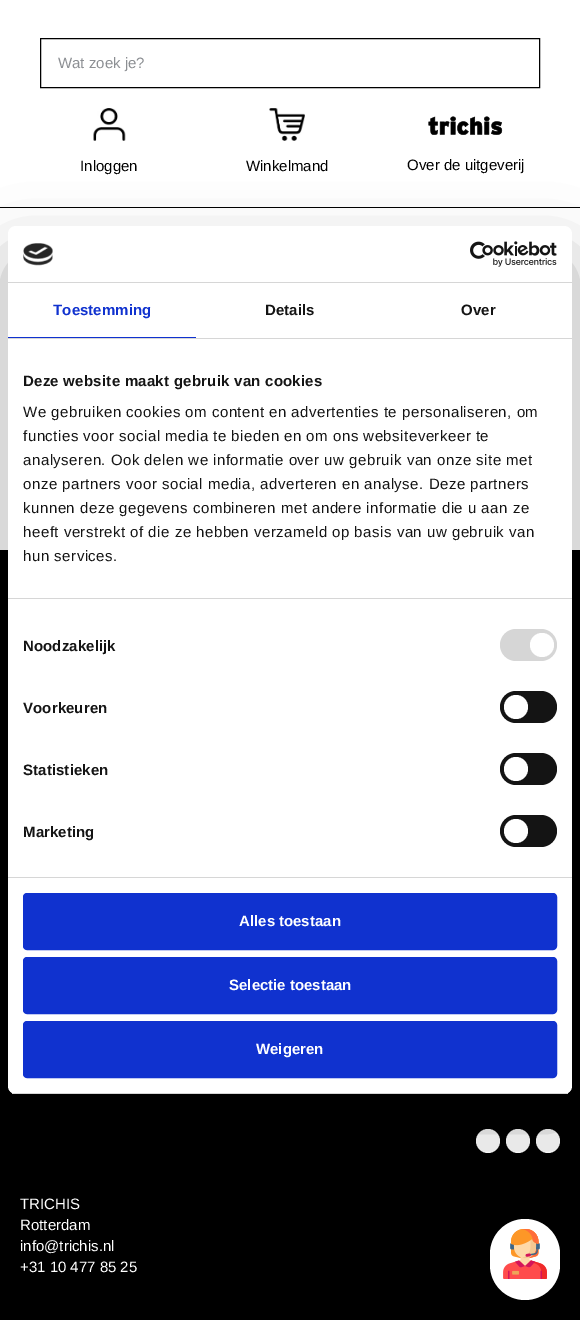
%!PS
<< /PageSize [580 1320] /PageUsesTransparency true >> setpagedevice
/rgb { 3 { 255 div 3 1 roll } repeat setrgbcolor } def
/font { [ exch dup neg 0 0 3 -1 roll 0 0 ] selectfont } def
/text { moveto show } def
/alpha { dup .setfillconstantalpha .setstrokeconstantalpha } def
/circle { newpath 0 360 arc closepath } def
/roundrect { 5 dict begin { /r /h /w /y /x } { exch def } forall
  x r add y moveto x w add y 2 copy h add r arct x w add y h add x 1 index r arct
  x y h add x y r arct x y 2 copy exch w add exch r arct closepath end } def
/shadow { 12 dict begin { /a /b /q /h /w /y /x } { exch def } forall gsave /was 0 def
  9 -2 -9 { dup b mul 4 div /e exch def 1 sub .425 mul 2.718 exch exp 1 add a .99 .min exch div /now exch def
    1 1 now sub 1 was sub div sub alpha /was now def
    w h .min e 2 mul add 0 gt { x e sub y e sub w e 2 mul add h e 2 mul add
      q e add b .6 mul add w h .min 2 div e add .min 0 .max roundrect fill } if } for grestore end } def
/picture { 5 dict begin { /h /w /y /x /name } { exch def } forall
  gsave x y translate w h scale
  w h 8 [w 0 0 h 0 0] name (r) file false 3 colorimage grestore end } def
0 .pushpdf14devicefilter
0 1320 translate 1 -1 scale
4 setmiterlimit
255 255 255 rgb
0 0 580 1320 rectfill
0 0 0 rgb
40.5 38.5 499 49 rectstroke
(img_01.rgb) 93 108 33 33 picture
(img_02.rgb) 269 108 36 33 picture
(img_03.rgb) 428 116 75 19 picture
0 207 580 1 rectfill
0 550 580 770 rectfill
255 255 255 rgb
488 1141 12 circle fill
518 1141 12 circle fill
548 1141 12 circle fill
490 1219 70 81 35 roundrect fill
0 0 0 rgb
8 258 564 868 8 34 0.3 shadow
255 255 255 rgb
8 226 564 868 8 roundrect fill
214 214 214 rgb
8 282 564 1 rectfill
(img_04.rgb) 23 243 30 23 picture
(img_05.rgb) 470 241 87 26 picture
8 338 564 1 rectfill
16 50 207 rgb
8 337 188 1 rectfill
214 214 214 rgb
8 598 564 1 rectfill
8 877 564 1 rectfill
500 629 57 32 16 roundrect fill
255 255 255 rgb
542 645 12 circle fill
20 20 20 rgb
500 691 57 32 16 roundrect fill
255 255 255 rgb
516 707 12 circle fill
20 20 20 rgb
500 753 57 32 16 roundrect fill
255 255 255 rgb
516 769 12 circle fill
20 20 20 rgb
500 815 57 32 16 roundrect fill
255 255 255 rgb
516 831 12 circle fill
gsave
8 226 564 868 8 roundrect clip newpath
214 214 214 rgb
8 1093 564 1 rectfill
grestore
16 50 207 rgb
24 894 532 55 3 roundrect gsave fill grestore
2 setlinewidth
stroke
24 958 532 55 3 roundrect gsave fill grestore
stroke
24 1022 532 55 3 roundrect gsave fill grestore
stroke
(img_06.rgb) 503 1229 44 50 picture
/LiberationSans-Regular 15 font
140 143 147 rgb
(Wat zoek je?) 58 68 text
0 0 0 rgb
(Inloggen) 80 171 text
(Winkelmand) 246 171 text
(Over de uitgeverij) 407 170 text
/LiberationSans-Bold 15 font
16 50 207 rgb
53 315 moveto 0.1 0 (Toestemming) ashow
20 20 20 rgb
265 315 moveto 0.1 0 (Details) ashow
461 315 moveto 0.1 0 (Over) ashow
23 386 moveto 0.25 0 (Deze website maakt gebruik van cookies) ashow
/LiberationSans-Regular 15 font
23 417 moveto 0.5 0 (We gebruiken cookies om content en advertenties te personaliseren, om) ashow
23 441 moveto 0.5 0 (functies voor social media te bieden en om ons websiteverkeer te) ashow
23 465 moveto 0.5 0 (analyseren. Ook delen we informatie over uw gebruik van onze site met) ashow
23 489 moveto 0.5 0 (onze partners voor social media, adverteren en analyse. Deze partners) ashow
23 513 moveto 0.5 0 (kunnen deze gegevens combineren met andere informatie die u aan ze) ashow
23 537 moveto 0.5 0 (heeft verstrekt of die ze hebben verzameld op basis van uw gebruik van) ashow
23 561 moveto 0.5 0 (hun services.) ashow
/LiberationSans-Bold 15 font
23 651 moveto 0.1 0 (Noodzakelijk) ashow
23 713 moveto 0.1 0 (Voorkeuren) ashow
23 775 moveto 0.1 0 (Statistieken) ashow
23 837 moveto 0.1 0 (Marketing) ashow
255 255 255 rgb
(Alles toestaan) 239 926 text
(Selectie toestaan) 229 990 text
(Weigeren) 256 1054 text
/LiberationSans-Regular 15 font
(TRICHIS) 20 1209 text
(Rotterdam) 20 1230 text
(info@trichis.nl) 20 1251 text
(+31 10 477 85 25) 20 1272 text
.poppdf14devicefilter showpage
